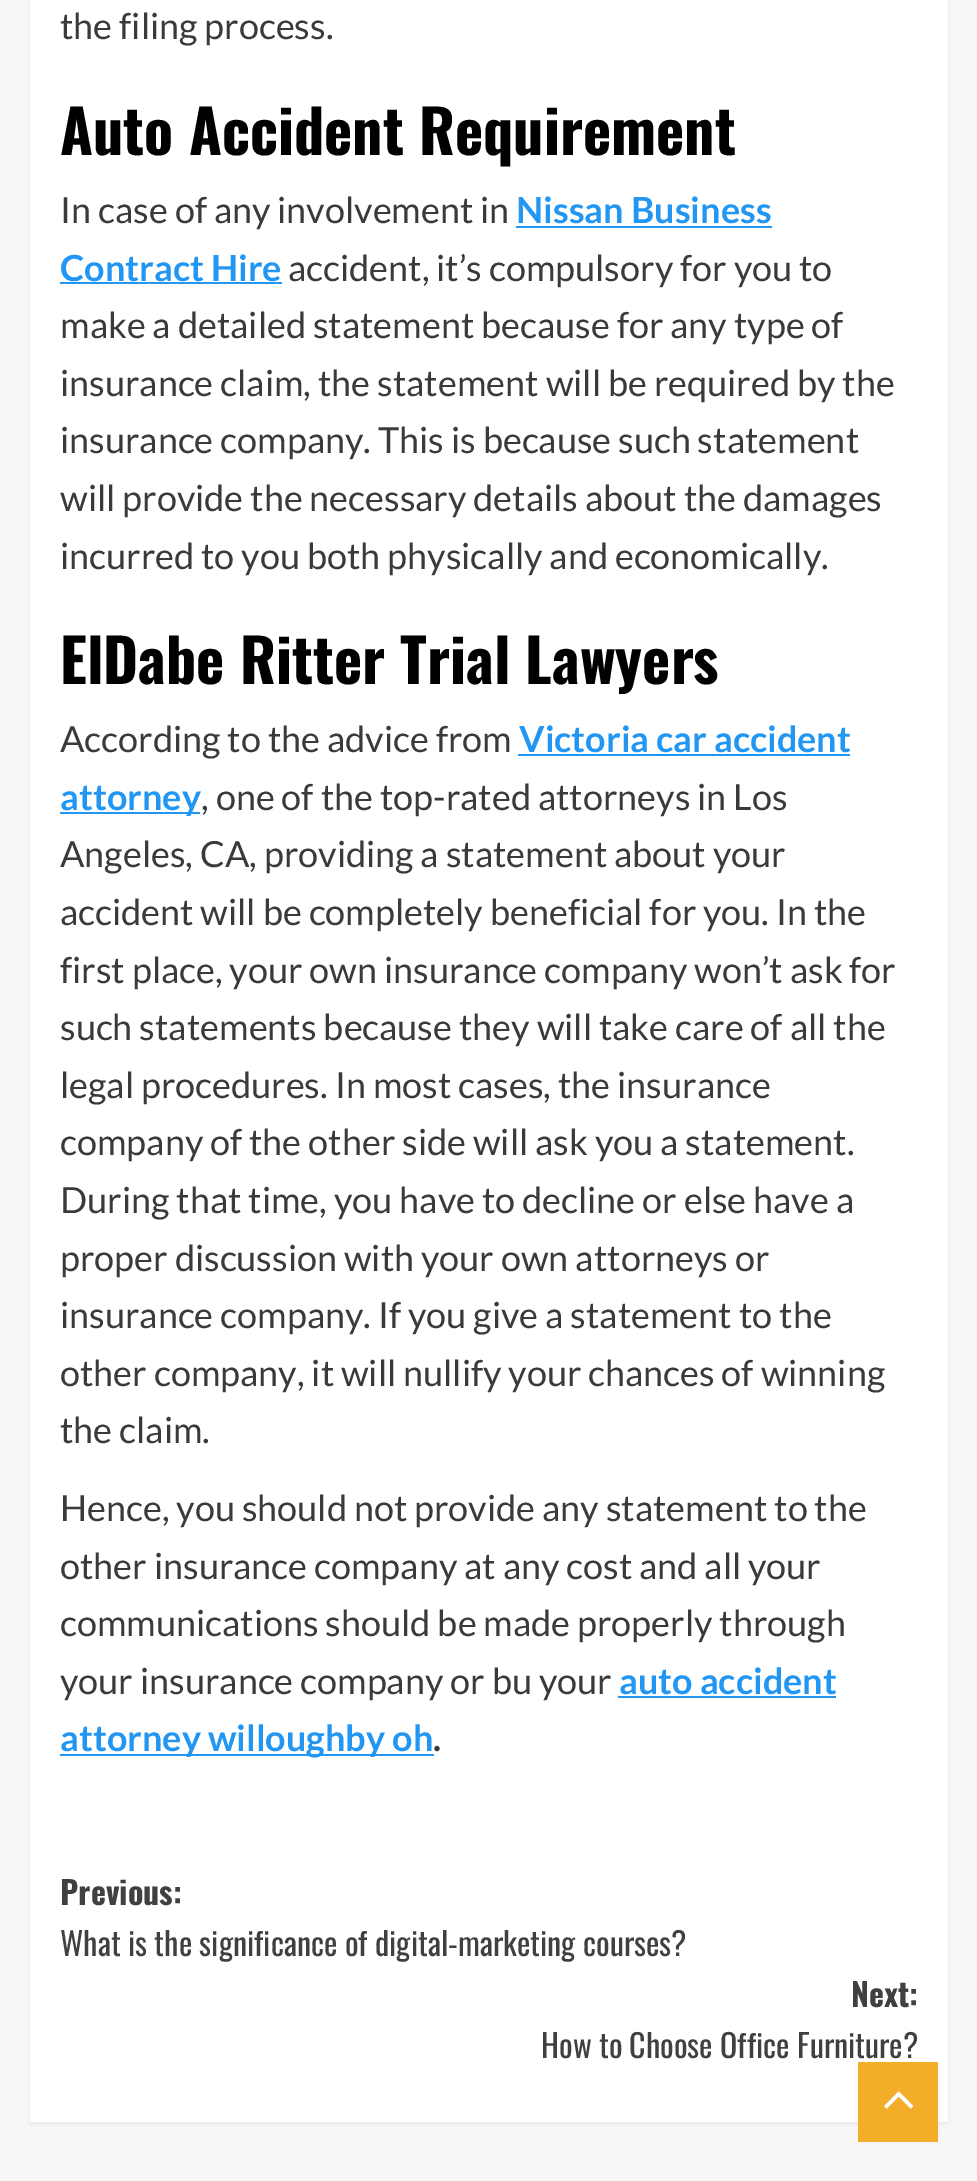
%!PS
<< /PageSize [977 2181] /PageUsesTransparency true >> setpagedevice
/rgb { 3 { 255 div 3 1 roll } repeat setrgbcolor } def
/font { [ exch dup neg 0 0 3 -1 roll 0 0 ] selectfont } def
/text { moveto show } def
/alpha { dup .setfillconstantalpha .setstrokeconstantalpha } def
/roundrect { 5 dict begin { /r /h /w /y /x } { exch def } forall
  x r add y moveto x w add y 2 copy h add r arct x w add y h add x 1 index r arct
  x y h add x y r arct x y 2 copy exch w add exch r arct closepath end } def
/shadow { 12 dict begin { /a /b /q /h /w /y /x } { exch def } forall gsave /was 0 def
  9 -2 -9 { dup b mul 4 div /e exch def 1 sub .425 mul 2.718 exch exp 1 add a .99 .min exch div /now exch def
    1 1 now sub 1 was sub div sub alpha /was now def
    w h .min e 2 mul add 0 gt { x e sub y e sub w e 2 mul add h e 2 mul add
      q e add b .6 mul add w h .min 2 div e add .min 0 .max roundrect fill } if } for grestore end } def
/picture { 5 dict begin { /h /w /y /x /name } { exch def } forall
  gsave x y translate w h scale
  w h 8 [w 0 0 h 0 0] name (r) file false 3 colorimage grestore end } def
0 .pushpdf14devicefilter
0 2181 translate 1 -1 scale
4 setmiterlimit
247 247 247 rgb
0 0 977 2181 rectfill
0 0 0 rgb
30 -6 918 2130 0 2 0.05 shadow
255 255 255 rgb
30 0 918 2122 rectfill
33 150 243 rgb
516 226 256 2 rectfill
60 282 222 2 rectfill
518 754 332 2 rectfill
60 812 140 2 rectfill
618 1696 218 2 rectfill
60 1754 374 2 rectfill
243 173 41 rgb
858 2062 80 80 rectfill
(img_01.rgb) 884 2091 30 18 picture
/Lato-Regular 36 font
58 58 58 rgb
(the filing process.) 60 39 text
/Oswald-Bold 60 font
0 0 0 rgb
(Auto Accident Requirement) 60 155 text
/Lato-Regular 36 font
58 58 58 rgb
(In case of any involvement in) 60 223 text
/Lato-Bold 36 font
33 150 243 rgb
(Nissan Business) 516 223 text
(Contract Hire) 60 281 text
/Lato-Regular 36 font
58 58 58 rgb
(accident, it’s compulsory for you to) 288 281 text
(make a detailed statement because for any type of) 60 338 text
(insurance claim, the statement will be required by the) 60 396 text
(insurance company. This is because such statement) 60 453 text
(will provide the necessary details about the damages) 60 511 text
(incurred to you both physically and economically.) 60 569 text
/Oswald-Bold 60 font
0 0 0 rgb
(ElDabe Ritter Trial Lawyers) 60 684 text
/Lato-Regular 36 font
58 58 58 rgb
(According to the advice from) 60 752 text
/Lato-Bold 36 font
33 150 243 rgb
(Victoria car accident) 519 752 text
(attorney) 60 810 text
/Lato-Regular 36 font
58 58 58 rgb
(, one of the top-rated attorneys in Los) 201 810 text
(Angeles, CA, providing a statement about your) 60 867 text
(accident will be completely beneficial for you. In the) 60 925 text
(first place, your own insurance company won’t ask for) 60 983 text
(such statements because they will take care of all the) 60 1040 text
(legal procedures. In most cases, the insurance) 60 1098 text
(company of the other side will ask you a statement.) 60 1155 text
(During that time, you have to decline or else have a) 60 1213 text
(proper discussion with your own attorneys or) 60 1271 text
(insurance company. If you give a statement to the) 60 1328 text
(other company, it will nullify your chances of winning) 60 1386 text
(the claim.) 60 1443 text
(Hence, you should not provide any statement to the) 60 1521 text
(other insurance company at any cost and all your) 60 1579 text
(communications should be made properly through) 60 1636 text
(your insurance company or bu your) 60 1694 text
/Lato-Bold 36 font
33 150 243 rgb
(auto accident) 619 1694 text
(attorney willoughby oh) 60 1751 text
58 58 58 rgb
(.) 433 1751 text
/Oswald-Bold 32 font
64 64 64 rgb
(Previous:) 60 1905 text
/Oswald-Regular 32 font
(What is the significance of digital-marketing courses?) 60 1956 text
/Oswald-Bold 32 font
(Next:) 851 2007 text
/Oswald-Regular 32 font
(How to Choose Office Furniture?) 541 2058 text
.poppdf14devicefilter showpage
